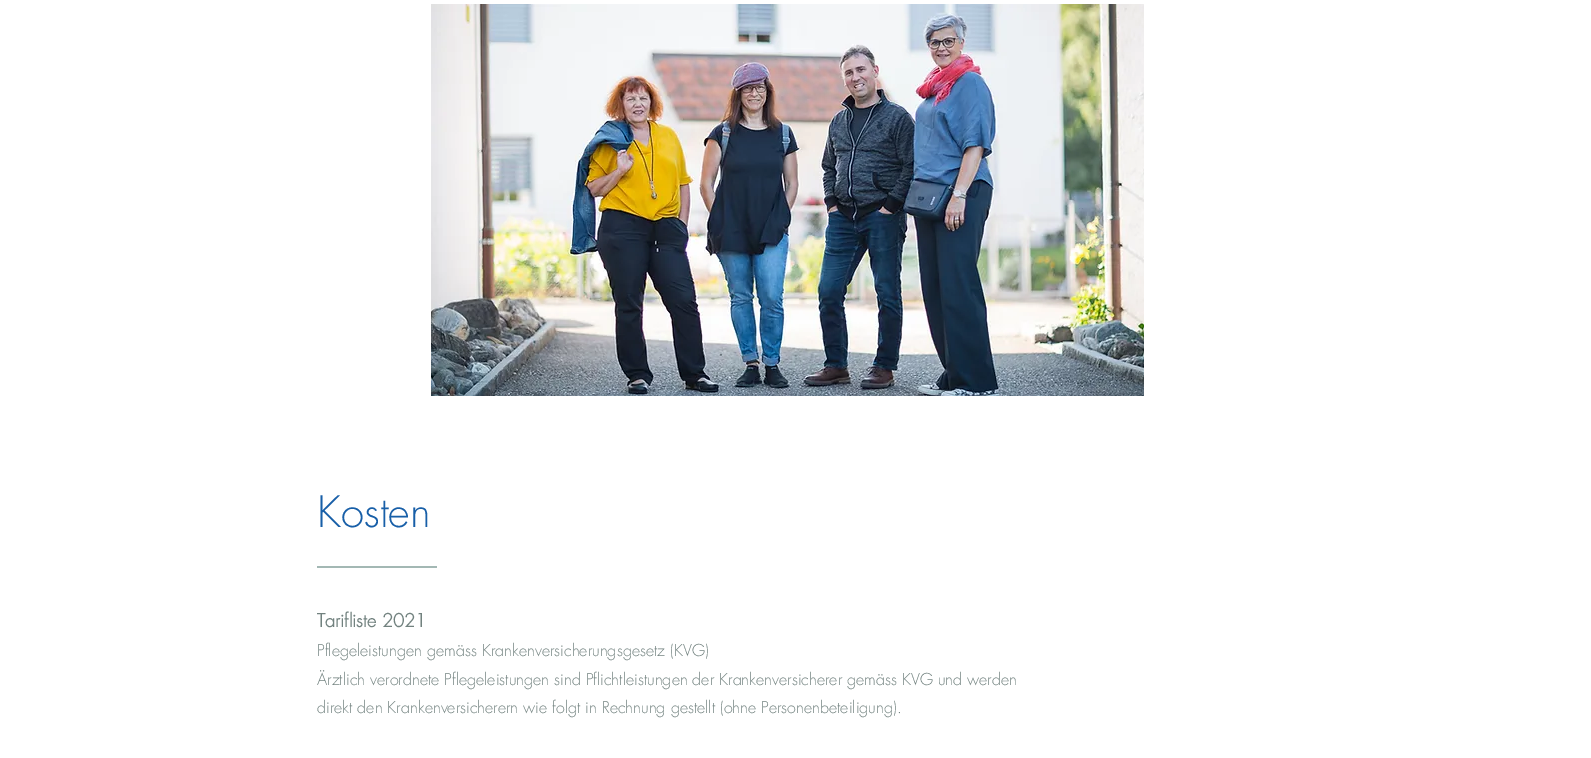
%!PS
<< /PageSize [1591 758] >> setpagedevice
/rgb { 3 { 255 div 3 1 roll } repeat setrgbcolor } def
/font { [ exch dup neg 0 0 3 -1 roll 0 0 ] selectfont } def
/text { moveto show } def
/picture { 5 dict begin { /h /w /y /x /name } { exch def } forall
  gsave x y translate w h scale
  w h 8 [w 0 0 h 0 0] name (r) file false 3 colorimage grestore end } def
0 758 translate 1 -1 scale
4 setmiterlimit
255 255 255 rgb
0 0 1591 758 rectfill
(img_01.rgb) 431 4 713 392 picture
163 184 180 rgb
317 566 120 2 rectfill
/futura-Light 42 font
24 95 168 rgb
(Kosten) 317 527 text
/futura-Bold 18 font
114 130 127 rgb
(Tarifliste 2021) 317 627 text
/futura-Light 16 font
(Pflegeleistungen gemäss Krankenversicherungsgesetz \(KVG\)) 317 656 text
(Ärztlich verordnete Pflegeleistungen sind Pflichtleistungen der Krankenversicherer gemäss KVG und werden) 317 685 text
(direkt den Krankenversicherern wie folgt in Rechnung gestellt \(ohne Personenbeteiligung\).) 317 713 text
showpage
